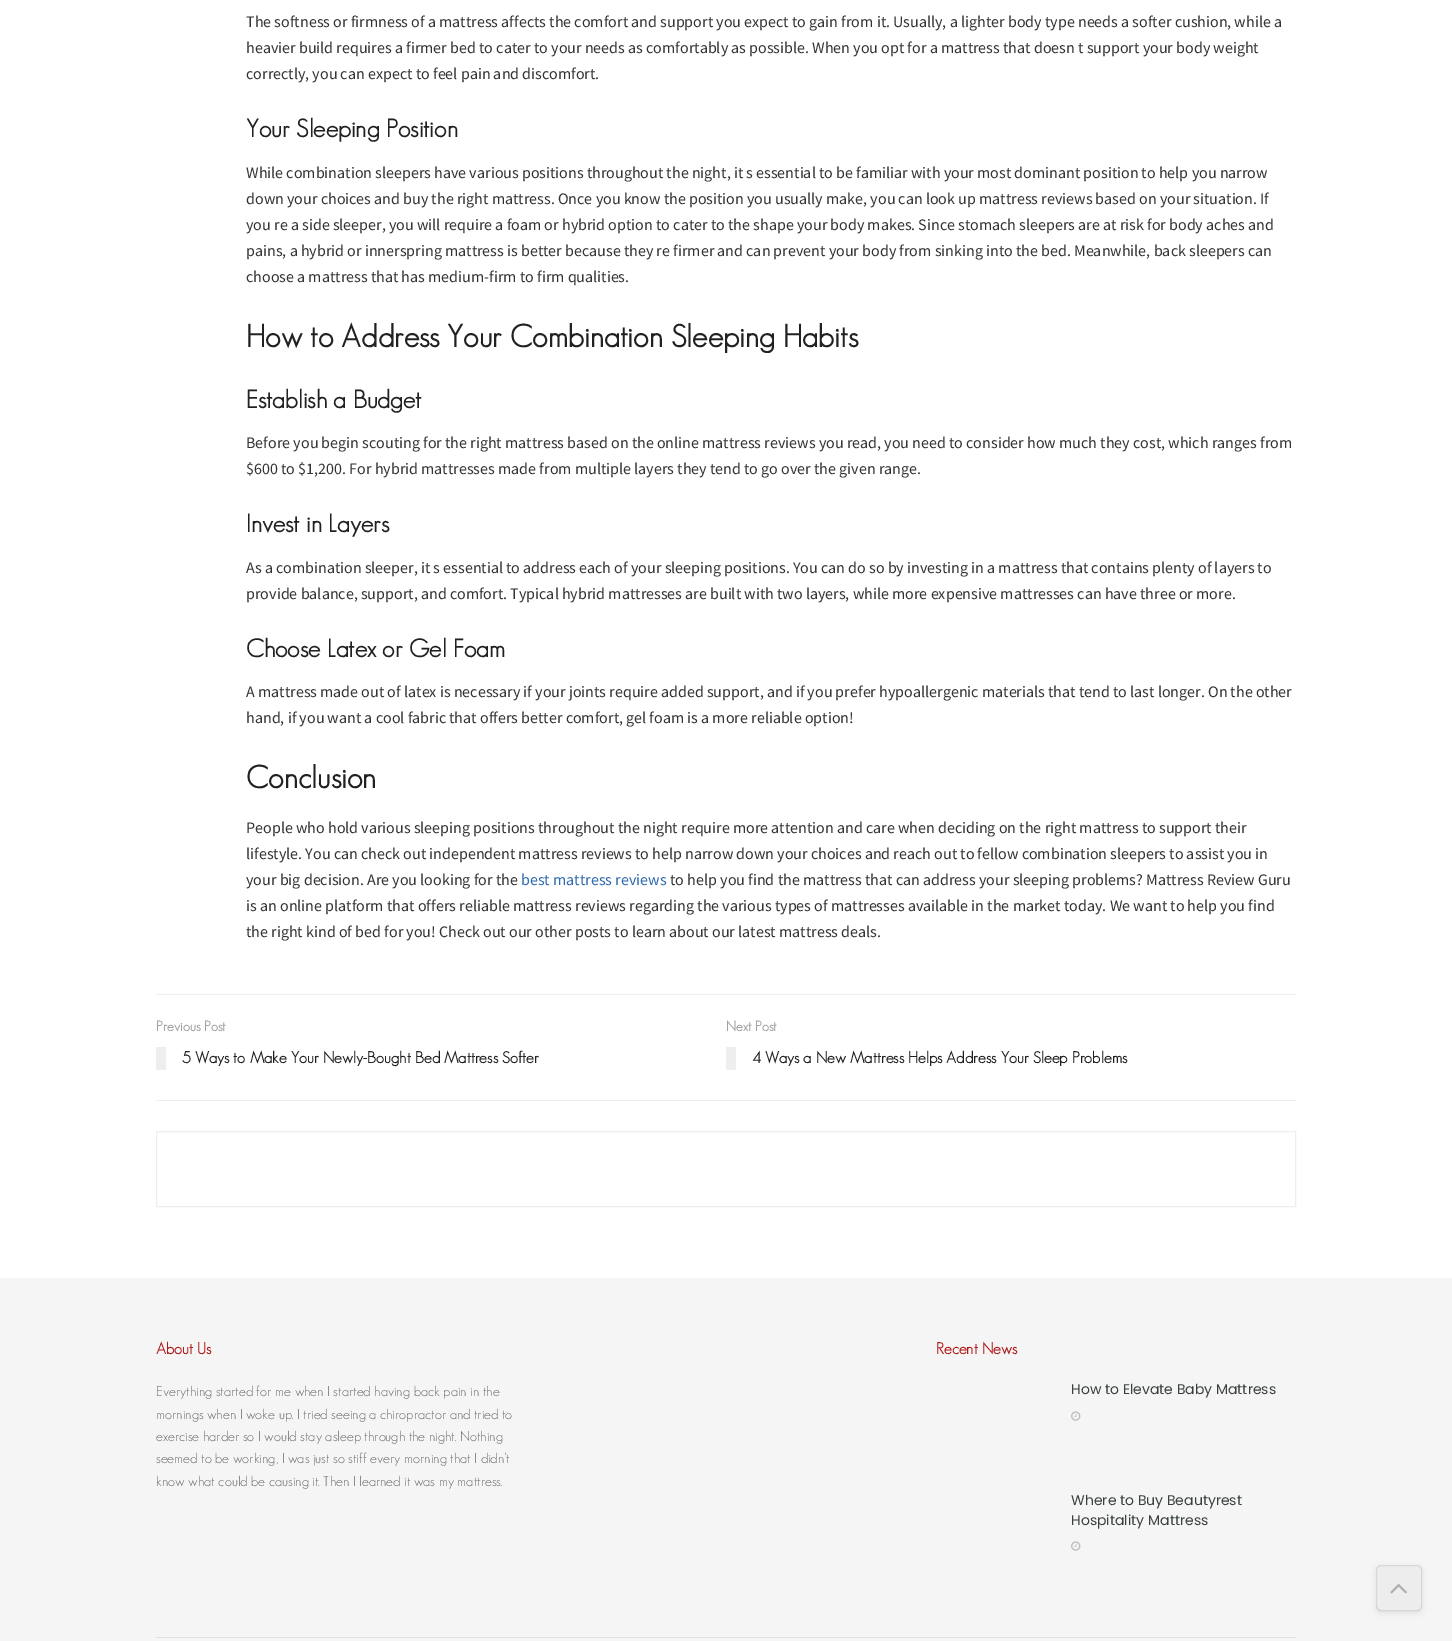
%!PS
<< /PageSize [1452 1641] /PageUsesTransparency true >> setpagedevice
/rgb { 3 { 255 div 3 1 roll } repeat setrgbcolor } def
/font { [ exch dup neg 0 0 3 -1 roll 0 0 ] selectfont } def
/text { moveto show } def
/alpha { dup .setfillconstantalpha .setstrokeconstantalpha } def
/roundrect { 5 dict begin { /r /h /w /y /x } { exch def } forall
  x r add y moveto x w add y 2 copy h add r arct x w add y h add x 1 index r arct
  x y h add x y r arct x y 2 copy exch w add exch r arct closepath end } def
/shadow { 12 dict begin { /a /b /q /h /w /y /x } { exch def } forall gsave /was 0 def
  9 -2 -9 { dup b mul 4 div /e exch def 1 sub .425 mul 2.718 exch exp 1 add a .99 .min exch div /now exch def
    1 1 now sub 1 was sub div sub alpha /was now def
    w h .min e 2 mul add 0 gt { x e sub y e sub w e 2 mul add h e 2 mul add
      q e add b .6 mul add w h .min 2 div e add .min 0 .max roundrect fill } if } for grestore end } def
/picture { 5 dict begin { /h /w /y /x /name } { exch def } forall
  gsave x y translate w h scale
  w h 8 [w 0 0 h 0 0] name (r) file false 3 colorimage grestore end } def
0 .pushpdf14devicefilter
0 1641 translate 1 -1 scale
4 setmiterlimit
255 255 255 rgb
0 0 1452 1641 rectfill
238 238 238 rgb
156 994 1140 1 rectfill
156 1100 1140 1 rectfill
156 1047 10 23 rectfill
726 1047 10 23 rectfill
156.5 1131.5 1139 75 rectstroke
245 245 245 rgb
0 1278 1452 363 rectfill
(img_01.rgb) 1071 1411 10 10 picture
(img_01.rgb) 1071 1541 10 10 picture
224 224 224 rgb
156 1637 1140 1 rectfill
gsave
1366 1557 moveto 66 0 rlineto 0 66 rlineto -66 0 rlineto closepath 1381 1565 moveto 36 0 rlineto 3 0 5 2 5 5 rcurveto 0 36 rlineto 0 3 -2 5 -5 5 rcurveto -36 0 rlineto -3 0 -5 -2 -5 -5 rcurveto 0 -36 rlineto 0 -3 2 -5 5 -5 rcurveto closepath eoclip newpath
49 49 49 rgb
1376 1567 46 46 5 3 0.1 shadow
grestore
0.15 alpha
193 193 193 rgb
1376 1565 46 46 5 roundrect fill
0.11 alpha
49 49 49 rgb
1376.5 1565.5 45 45 4.5 roundrect stroke
1 alpha
(img_02.rgb) 1390 1583 17 11 picture
/SourceSansPro-Regular 16 font
51 51 51 rgb
(The softness or firmness of a mattress affects the comfort and support you expect to gain from it. Usually, a lighter body type needs a softer cushion, while a) 246 27 text
(heavier build requires a firmer bed to cater to your needs as comfortably as possible. When you opt for a mattress that doesn t support your body weight) 246 53 text
(correctly, you can expect to feel pain and discomfort.) 246 79 text
/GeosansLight-Bold 25 font
33 33 33 rgb
(Your Sleeping Position) 246 137 text
/SourceSansPro-Regular 16 font
51 51 51 rgb
(While combination sleepers have various positions throughout the night, it s essential to be familiar with your most dominant position to help you narrow) 246 178 text
(down your choices and buy the right mattress. Once you know the position you usually make, you can look up mattress reviews based on your situation. If) 246 204 text
(you re a side sleeper, you will require a foam or hybrid option to cater to the shape your body makes. Since stomach sleepers are at risk for body aches and) 246 230 text
(pains, a hybrid or innerspring mattress is better because they re firmer and can prevent your body from sinking into the bed. Meanwhile, back sleepers can) 246 256 text
(choose a mattress that has medium-firm to firm qualities.) 246 282 text
/GeosansLight-Bold 31.25 font
33 33 33 rgb
(How to Address Your Combination Sleeping Habits) 246 347 text
/GeosansLight-Bold 25 font
(Establish a Budget) 246 408 text
/SourceSansPro-Regular 16 font
51 51 51 rgb
(Before you begin scouting for the right mattress based on the online mattress reviews you read, you need to consider how much they cost, which ranges from) 246 448 text
($600 to $1,200. For hybrid mattresses made from multiple layers they tend to go over the given range.) 246 474 text
/GeosansLight-Bold 25 font
33 33 33 rgb
(Invest in Layers) 246 532 text
/SourceSansPro-Regular 16 font
51 51 51 rgb
(As a combination sleeper, it s essential to address each of your sleeping positions. You can do so by investing in a mattress that contains plenty of layers to) 246 573 text
(provide balance, support, and comfort. Typical hybrid mattresses are built with two layers, while more expensive mattresses can have three or more.) 246 599 text
/GeosansLight-Bold 25 font
33 33 33 rgb
(Choose Latex or Gel Foam) 246 657 text
/SourceSansPro-Regular 16 font
51 51 51 rgb
(A mattress made out of latex is necessary if your joints require added support, and if you prefer hypoallergenic materials that tend to last longer. On the other) 246 697 text
(hand, if you want a cool fabric that offers better comfort, gel foam is a more reliable option!) 246 723 text
/GeosansLight-Bold 31.25 font
33 33 33 rgb
(Conclusion) 246 788 text
/SourceSansPro-Regular 16 font
51 51 51 rgb
(People who hold various sleeping positions throughout the night require more attention and care when deciding on the right mattress to support their) 246 833 text
(lifestyle. You can check out independent mattress reviews to help narrow down your choices and reach out to fellow combination sleepers to assist you in) 246 859 text
(your big decision. Are you looking for the) 246 885 text
46 106 174 rgb
(best mattress reviews) 521 885 text
51 51 51 rgb
(to help you find the mattress that can address your sleeping problems? Mattress Review Guru) 670 885 text
(is an online platform that offers reliable mattress reviews regarding the various types of mattresses available in the market today. We want to help you find) 246 911 text
(the right kind of bed for you! Check out our other posts to learn about our latest mattress deals.) 246 937 text
/GeosansLight-Bold 14 font
160 160 160 rgb
(Previous Post) 156 1031 text
/GeosansLight-Bold 16 font
33 33 33 rgb
(5 Ways to Make Your Newly-Bought Bed Mattress Softer) 182 1063 text
/GeosansLight-Bold 14 font
160 160 160 rgb
(Next Post) 726 1031 text
/GeosansLight-Bold 16 font
33 33 33 rgb
(4 Ways a New Mattress Helps Address Your Sleep Problems) 752 1063 text
175 26 26 rgb
(About Us) 156 1354 text
/GeosansLight-Light 14 font
102 102 102 rgb
(Everything started for me when I started having back pain in the) 156 1396 text
(mornings when I woke up. I tried seeing a chiropractor and tried to) 156 1419 text
(exercise harder so I would stay asleep through the night. Nothing) 156 1441 text
(seemed to be working, I was just so stiff every morning that I didn’t) 156 1463 text
(know what could be causing it. Then I learned it was my mattress.) 156 1486 text
/GeosansLight-Bold 16 font
175 26 26 rgb
(Recent News) 936 1354 text
/Poppins-Regular 14 font
57 63 63 rgb
(How to Elevate Baby Mattress) 1071 1394 text
(Where to Buy Beautyrest) 1071 1505 text
(Hospitality Mattress) 1071 1525 text
.poppdf14devicefilter showpage
